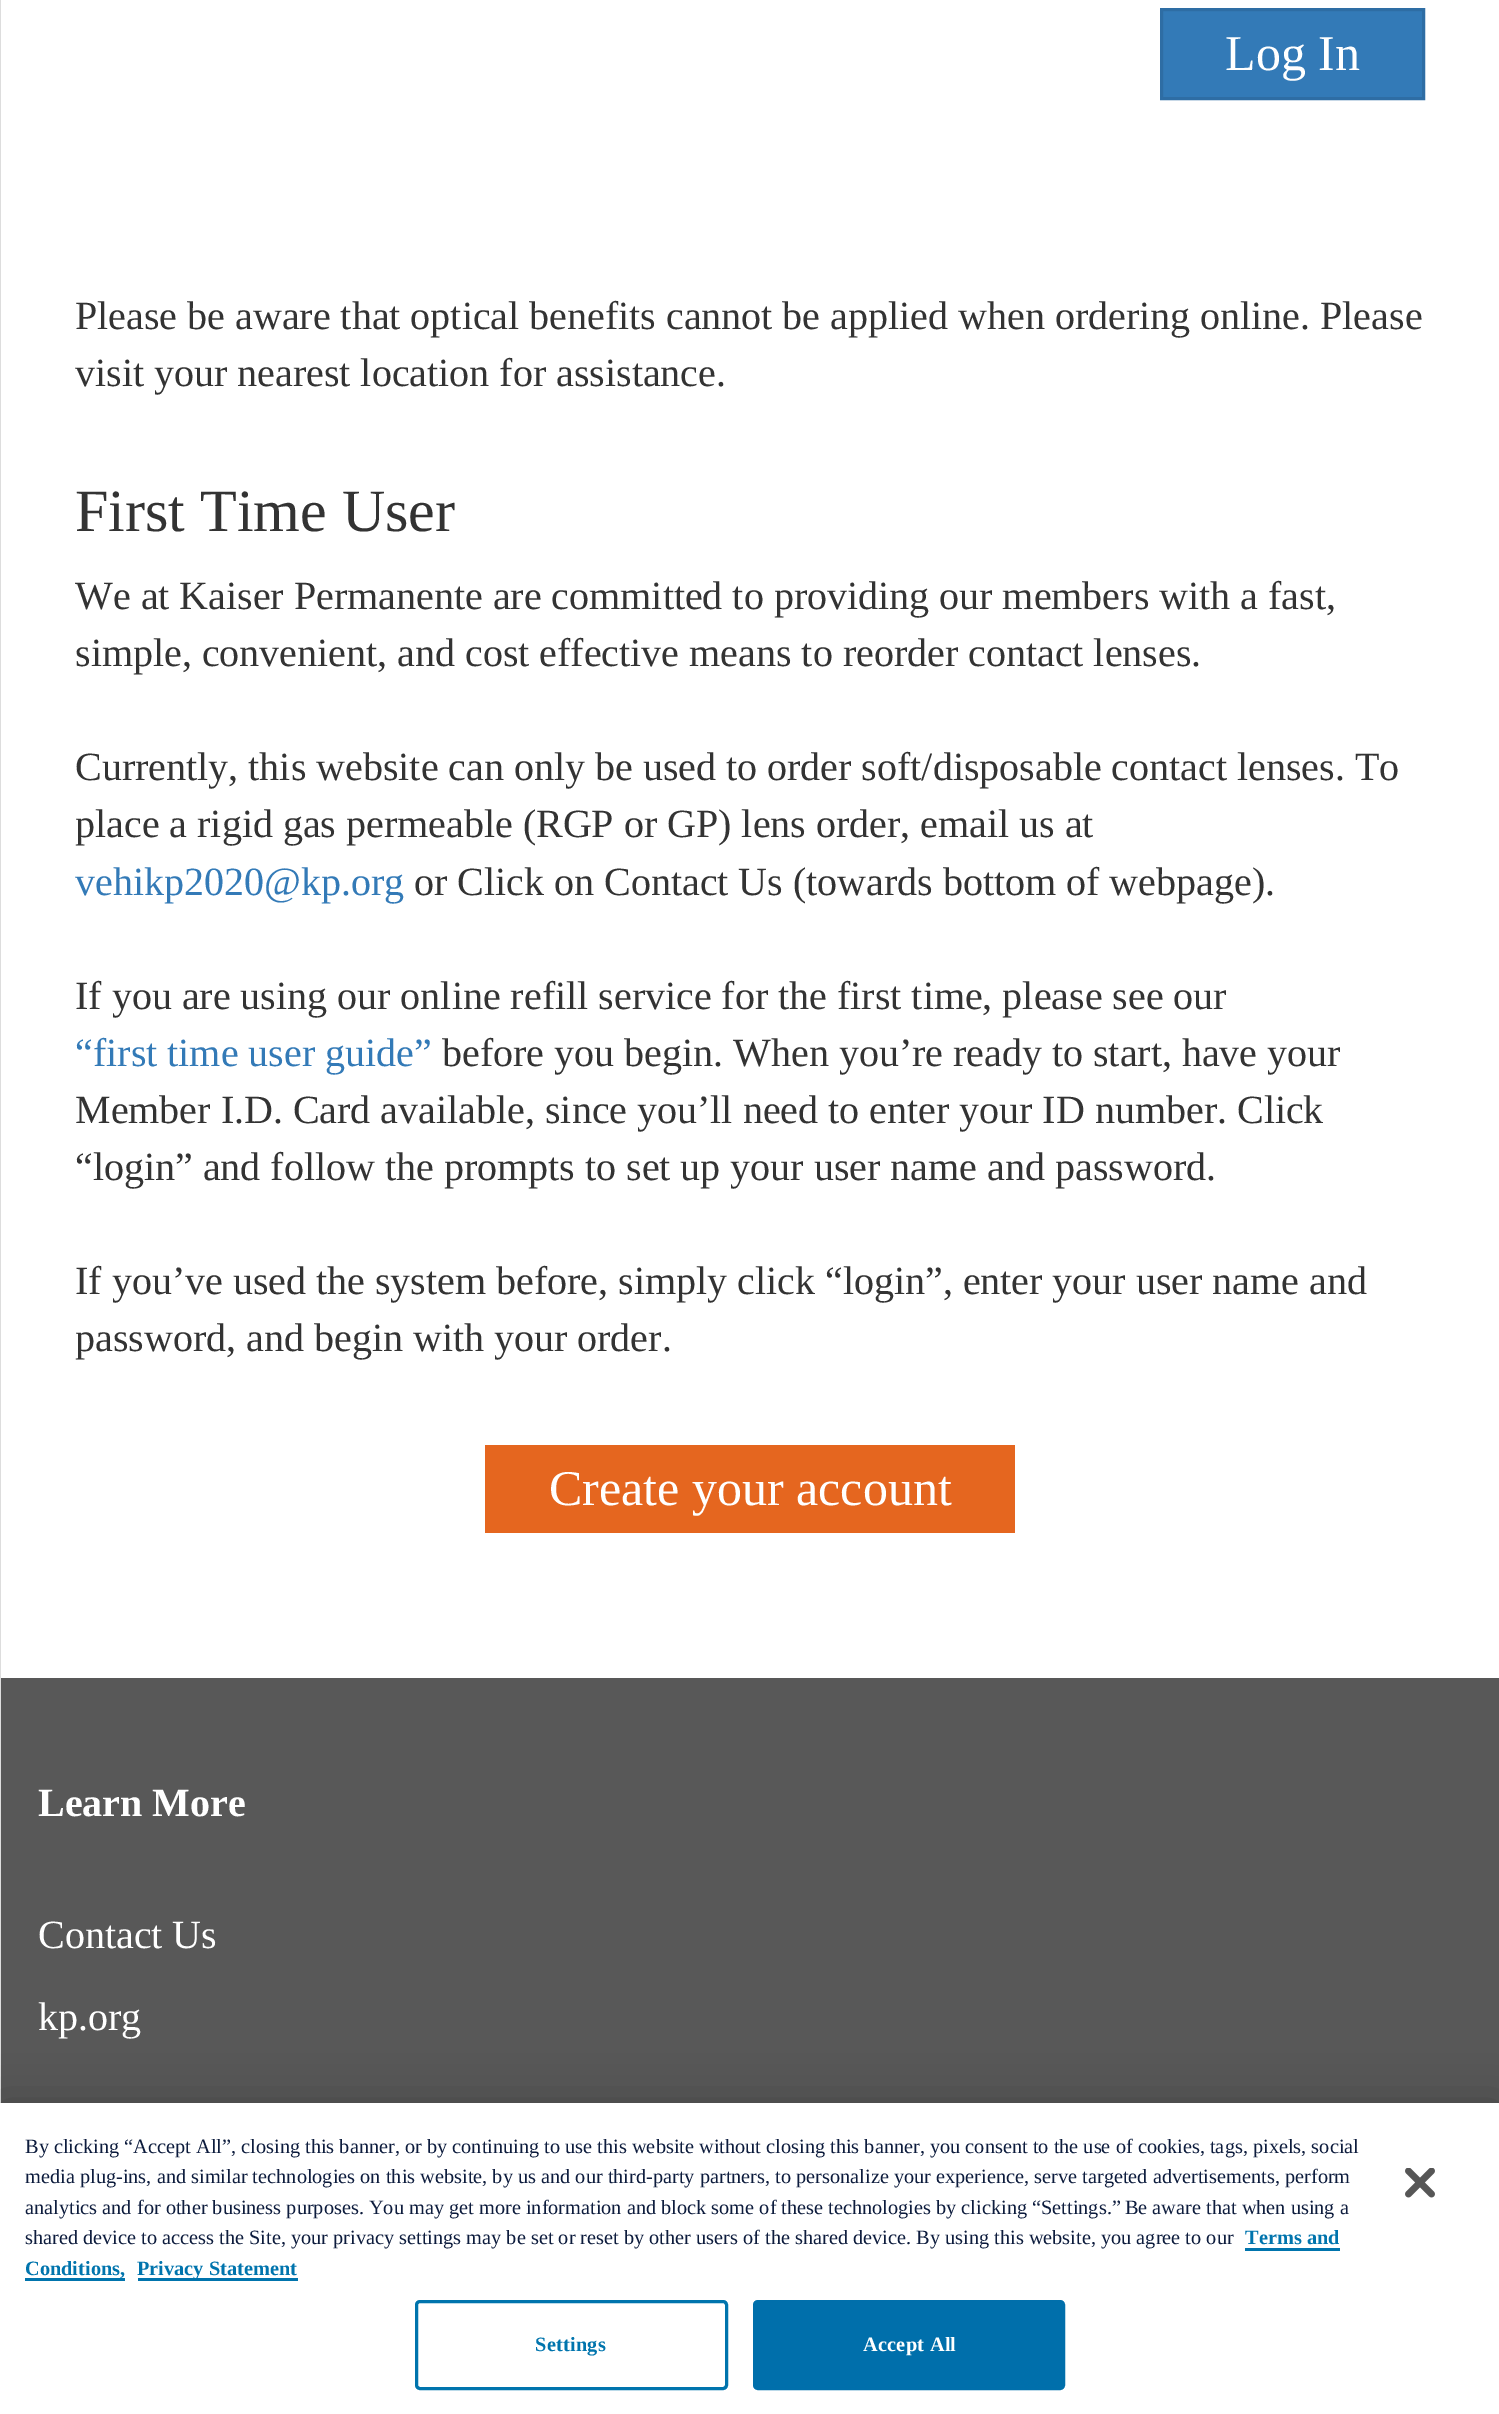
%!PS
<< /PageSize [1499 2414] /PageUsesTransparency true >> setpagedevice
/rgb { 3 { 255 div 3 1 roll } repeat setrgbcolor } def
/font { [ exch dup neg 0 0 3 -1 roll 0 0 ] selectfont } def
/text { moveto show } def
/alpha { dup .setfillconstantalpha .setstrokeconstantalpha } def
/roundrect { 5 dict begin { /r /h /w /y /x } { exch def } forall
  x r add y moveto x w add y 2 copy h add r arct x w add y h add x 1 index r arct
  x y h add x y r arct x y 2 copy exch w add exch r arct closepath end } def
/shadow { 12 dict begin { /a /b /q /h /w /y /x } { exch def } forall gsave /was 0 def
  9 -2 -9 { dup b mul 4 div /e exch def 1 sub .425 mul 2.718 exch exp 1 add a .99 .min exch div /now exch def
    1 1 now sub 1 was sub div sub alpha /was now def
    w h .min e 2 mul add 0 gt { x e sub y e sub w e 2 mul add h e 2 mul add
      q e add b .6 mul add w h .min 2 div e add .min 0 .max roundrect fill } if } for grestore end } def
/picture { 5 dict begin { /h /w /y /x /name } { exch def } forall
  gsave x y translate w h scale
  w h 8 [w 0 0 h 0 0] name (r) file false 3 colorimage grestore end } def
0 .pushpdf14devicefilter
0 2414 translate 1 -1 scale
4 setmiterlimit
255 255 255 rgb
0 0 1499 2414 rectfill
221 221 221 rgb
0 0 1 2103 rectfill
51 122 183 rgb
1161.5 9.5 moveto 262 0 rlineto 0 89 rlineto -262 0 rlineto closepath gsave fill grestore
46 109 164 rgb
3 setlinewidth
stroke
229 102 31 rgb
485 1445 530 88 rectfill
88 88 88 rgb
1 1678 1498 425 rectfill
0 0 0 rgb
0 2103 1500 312 0 22.5 0.2 shadow
255 255 255 rgb
0 2103 1499 311 rectfill
0 116 173 rgb
1245 2248 95 3 rectfill
25 2278 100 3 rectfill
138 2278 160 3 rectfill
416.5 2301.5 310 87 3.5 roundrect stroke
0 111 171 rgb
754.5 2301.5 309 87 3.5 roundrect gsave fill grestore
stroke
(img_01.rgb) 1405 2168 30 30 picture
/LiberationSerif-Regular 50 font
255 255 255 rgb
(Log In) 1225 70 text
/LiberationSerif-Regular 40 font
51 51 51 rgb
(Please be aware that optical benefits cannot be applied when ordering online. Please) 75 329 text
(visit your nearest location for assistance.) 75 386 text
/LiberationSerif-Regular 60 font
(First Time User) 75 531 text
/LiberationSerif-Regular 40 font
(We at Kaiser Permanente are committed to providing our members with a fast,) 75 609 text
(simple, convenient, and cost effective means to reorder contact lenses.) 75 666 text
(Currently, this website can only be used to order soft/disposable contact lenses. To) 75 780 text
(place a rigid gas permeable \(RGP or GP\) lens order, email us at) 75 837 text
51 122 183 rgb
(vehikp2020@kp.org) 75 895 text
51 51 51 rgb
(or Click on Contact Us \(towards bottom of webpage\).) 414 895 text
(If you are using our online refill service for the first time, please see our) 75 1009 text
51 122 183 rgb
(“first time user guide”) 75 1066 text
51 51 51 rgb
(before you begin. When you’re ready to start, have your) 442 1066 text
(Member I.D. Card available, since you’ll need to enter your ID number. Click) 75 1123 text
(“login” and follow the prompts to set up your user name and password.) 75 1180 text
(If you’ve used the system before, simply click “login”, enter your user name and) 75 1294 text
(password, and begin with your order.) 75 1351 text
/LiberationSerif-Regular 50 font
255 255 255 rgb
(Create your account) 549 1505 text
/LiberationSerif-Bold 40 font
(Learn More) 38 1816 text
/LiberationSerif-Regular 40 font
(Contact Us) 38 1948 text
(kp.org) 38 2030 text
/LiberationSerif-Regular 20.33 font
13 28 61 rgb
(By clicking “Accept All”, closing this banner, or by continuing to use this website without closing this banner, you consent to the use of cookies, tags, pixels, social) 25 2153 text
(media plug-ins, and similar technologies on this website, by us and our third-party partners, to personalize your experience, serve targeted advertisements, perform) 25 2183 text
(analytics and for other business purposes. You may get more information and block some of these technologies by clicking “Settings.” Be aware that when using a) 25 2214 text
(shared device to access the Site, your privacy settings may be set or reset by other users of the shared device. By using this website, you agree to our) 25 2244 text
/LiberationSerif-Bold 20.33 font
0 116 173 rgb
(Terms and) 1245 2244 text
(Conditions,) 25 2275 text
(Privacy Statement) 137 2275 text
535 2351 moveto 0.25 0 (Settings) ashow
255 255 255 rgb
863 2351 moveto 0.25 0 (Accept All) ashow
.poppdf14devicefilter showpage
